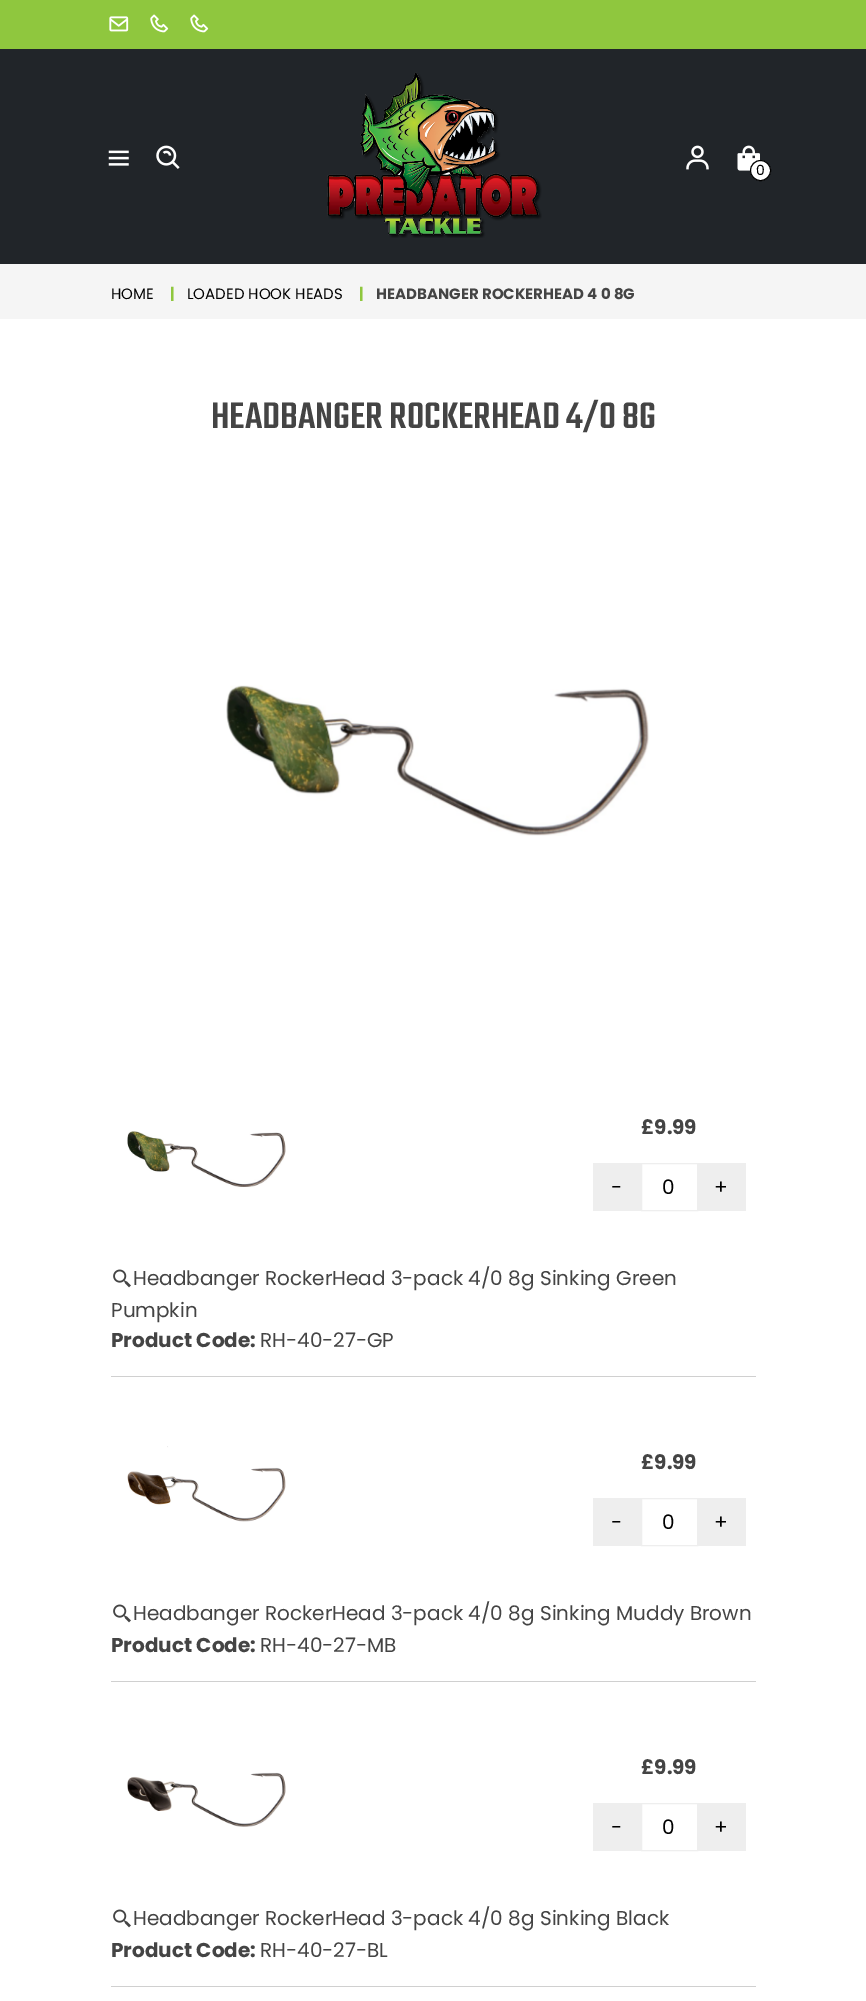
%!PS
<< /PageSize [866 2001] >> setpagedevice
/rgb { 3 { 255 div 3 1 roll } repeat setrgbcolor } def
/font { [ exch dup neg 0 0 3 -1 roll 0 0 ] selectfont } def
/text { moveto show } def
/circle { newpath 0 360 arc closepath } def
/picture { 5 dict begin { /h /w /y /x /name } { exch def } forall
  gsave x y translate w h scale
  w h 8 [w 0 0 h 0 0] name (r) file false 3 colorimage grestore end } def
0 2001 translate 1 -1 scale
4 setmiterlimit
255 255 255 rgb
0 0 866 2001 rectfill
33 37 41 rgb
0 49 866 215 rectfill
143 199 62 rgb
0 0 866 49 rectfill
(img_01.rgb) 109 16 20 16 picture
(img_02.rgb) 150 14 19 19 picture
(img_02.rgb) 190 14 19 19 picture
(img_03.rgb) 108 150 21 16 picture
(img_04.rgb) 156 145 24 24 picture
(img_05.rgb) 327 72 215 166 picture
(img_06.rgb) 686 145 23 25 picture
(img_07.rgb) 737 145 23 26 picture
255 255 255 rgb
760.5 170.5 10 circle gsave fill grestore
0 0 0 rgb
stroke
245 245 245 rgb
0 264 866 55 rectfill
(img_08.rgb) 226 685 424 151 picture
(img_09.rgb) 127 1131 159 57 picture
238 238 238 rgb
593 1163 48 48 rectfill
641.5 1163.5 56 47 rectstroke
698 1163 48 48 rectfill
(img_10.rgb) 113 1269 18 19 picture
208 208 208 rgb
111 1376 645 1 rectfill
(img_11.rgb) 127 1446 159 76 picture
238 238 238 rgb
593 1498 48 48 rectfill
641.5 1498.5 56 47 rectstroke
698 1498 48 48 rectfill
(img_10.rgb) 113 1604 18 19 picture
208 208 208 rgb
111 1681 645 1 rectfill
(img_12.rgb) 127 1772 159 55 picture
238 238 238 rgb
593 1803 48 48 rectfill
641.5 1803.5 56 47 rectstroke
698 1803 48 48 rectfill
(img_10.rgb) 113 1909 18 19 picture
208 208 208 rgb
111 1986 645 1 rectfill
/Poppins-Regular 14 font
0 0 0 rgb
(0) 756 175 text
/Poppins-Regular 15 font
(HOME) 111 299 text
/Poppins-Bold 15 font
143 199 62 rgb
(|) 170 299 text
/Poppins-Regular 15 font
0 0 0 rgb
(LOADED HOOK HEADS) 187 299 text
/Poppins-Bold 15 font
143 199 62 rgb
(|) 359 299 text
68 68 68 rgb
(HEADBANGER ROCKERHEAD 4 0 8G) 376 299 text
/Teko-Medium 40.5 font
(HEADBANGER ROCKERHEAD 4/0 8G) 211 428 text
/Poppins-Bold 20 font
(£9.99) 641 1134 text
/Poppins-Regular 20 font
0 0 0 rgb
(-) 611 1194 text
(0) 662 1194 text
(+) 714 1194 text
68 68 68 rgb
(Headbanger RockerHead 3-pack 4/0 8g Sinking Green) 133 1285 text
(Pumpkin) 111 1317 text
/Poppins-Bold 20 font
(Product Code:) 111 1347 text
/Poppins-Regular 20 font
(RH-40-27-GP) 260 1347 text
/Poppins-Bold 20 font
(£9.99) 641 1469 text
/Poppins-Regular 20 font
0 0 0 rgb
(-) 611 1529 text
(0) 662 1529 text
(+) 714 1529 text
68 68 68 rgb
(Headbanger RockerHead 3-pack 4/0 8g Sinking Muddy Brown) 133 1620 text
/Poppins-Bold 20 font
(Product Code:) 111 1652 text
/Poppins-Regular 20 font
(RH-40-27-MB) 260 1652 text
/Poppins-Bold 20 font
(£9.99) 641 1774 text
/Poppins-Regular 20 font
0 0 0 rgb
(-) 611 1834 text
(0) 662 1834 text
(+) 714 1834 text
68 68 68 rgb
(Headbanger RockerHead 3-pack 4/0 8g Sinking Black) 133 1925 text
/Poppins-Bold 20 font
(Product Code:) 111 1957 text
/Poppins-Regular 20 font
(RH-40-27-BL) 260 1957 text
showpage
